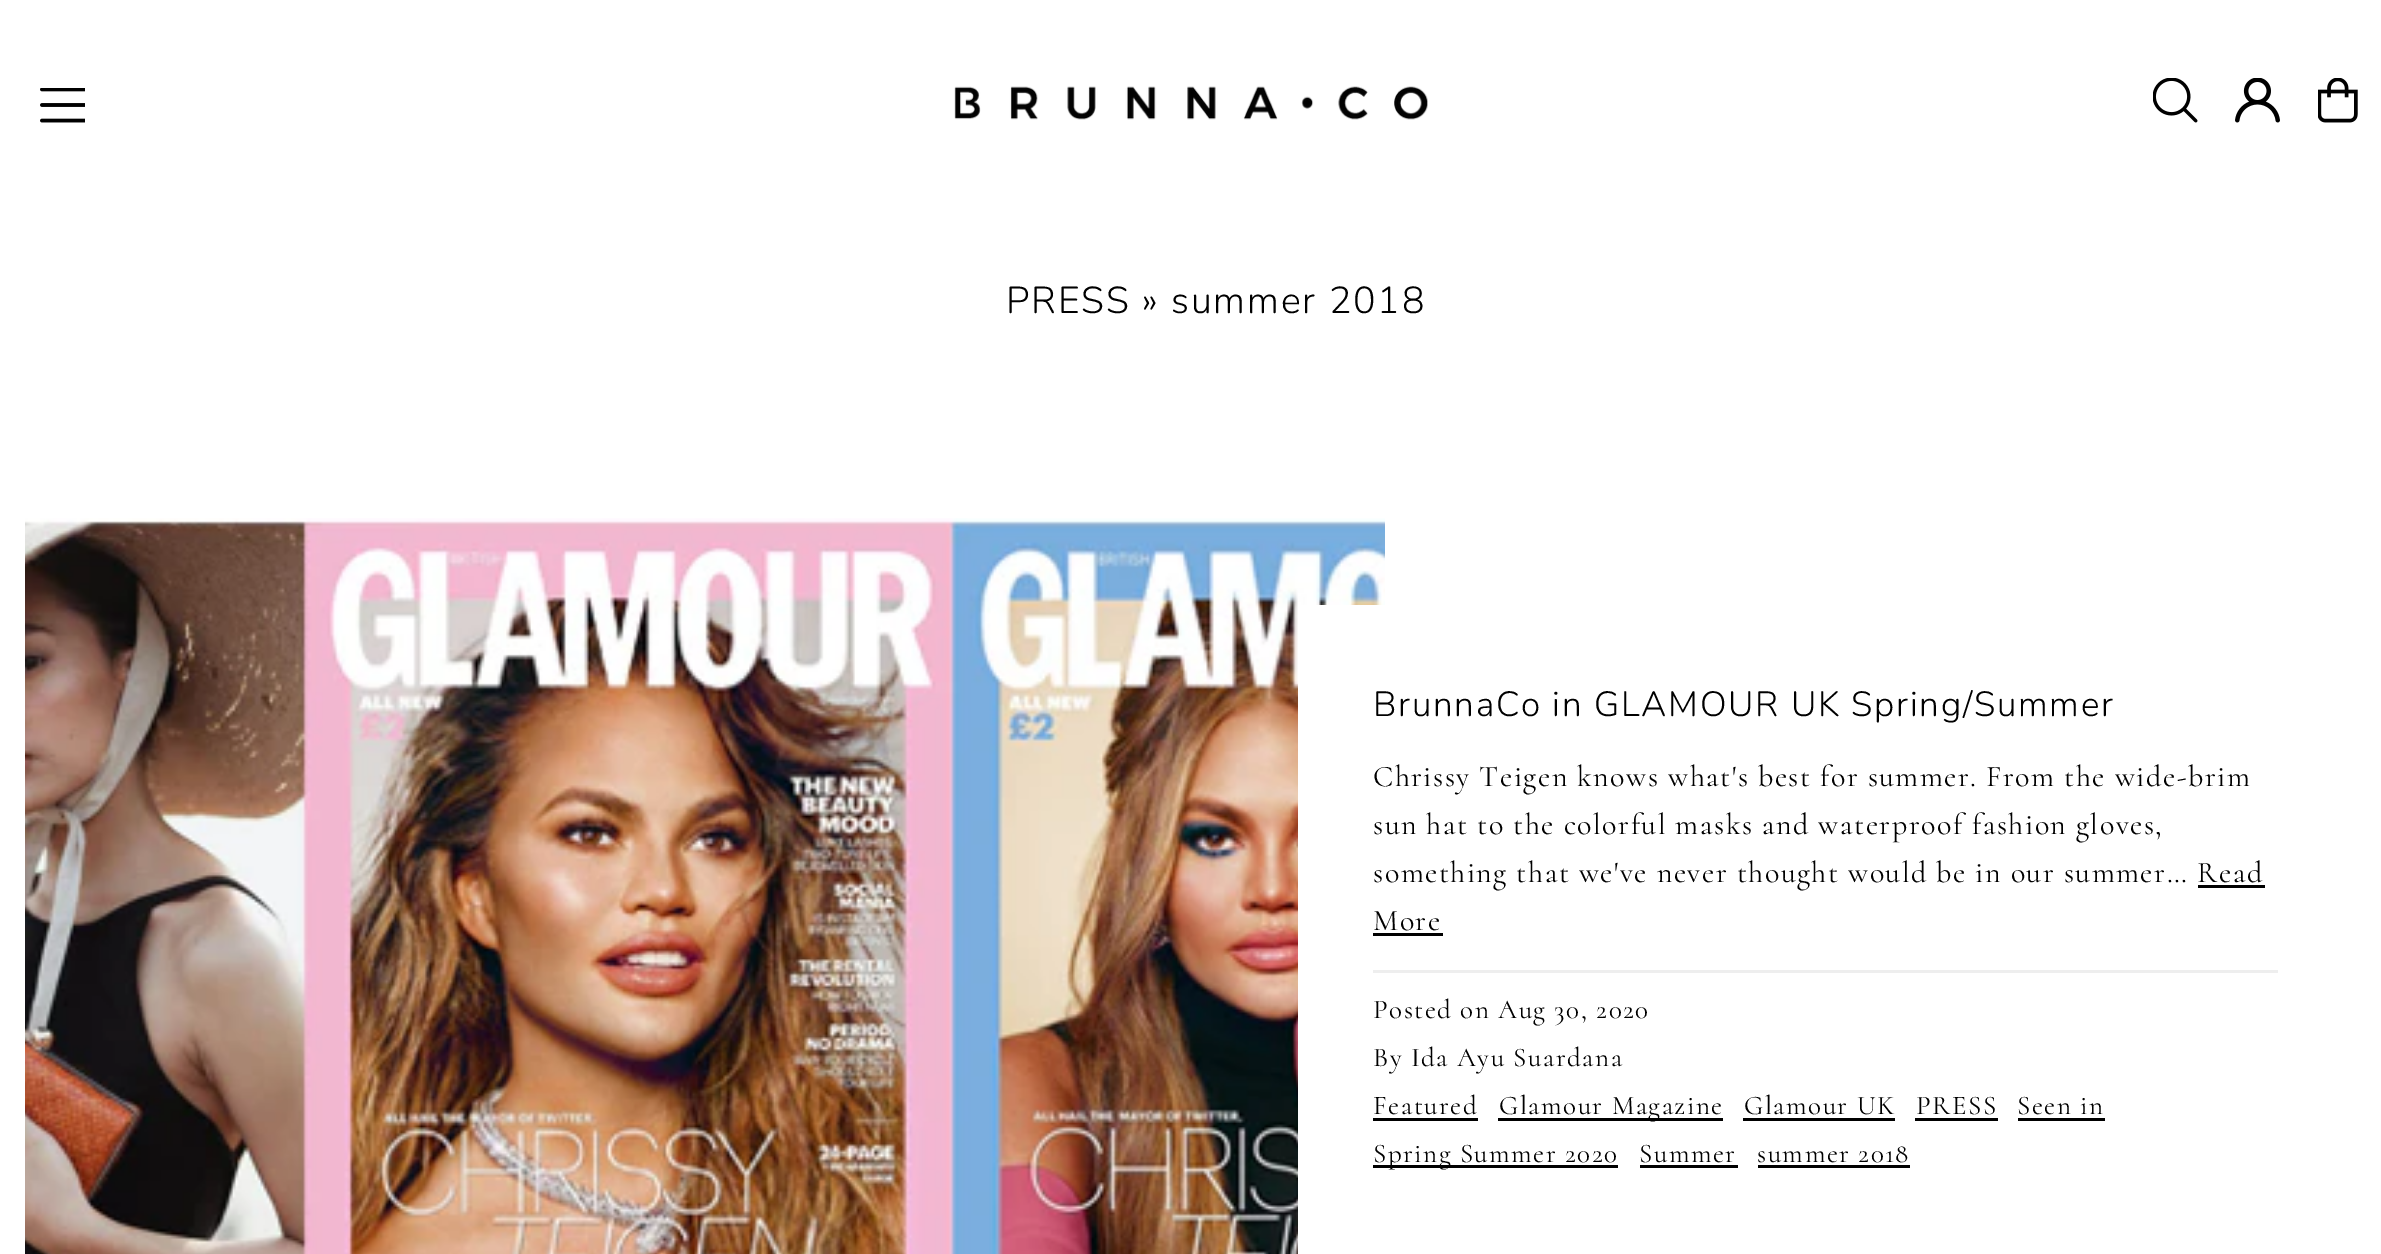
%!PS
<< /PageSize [2381 1254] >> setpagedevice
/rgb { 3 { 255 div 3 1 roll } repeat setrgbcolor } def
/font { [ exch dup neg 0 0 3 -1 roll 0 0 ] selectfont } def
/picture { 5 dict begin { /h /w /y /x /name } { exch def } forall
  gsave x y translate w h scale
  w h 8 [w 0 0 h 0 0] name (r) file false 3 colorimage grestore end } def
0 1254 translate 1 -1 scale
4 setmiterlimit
255 255 255 rgb
0 0 2381 1254 rectfill
(img_01.rgb) 40 88 45 35 picture
(img_02.rgb) 954 86 474 34 picture
(img_03.rgb) 2153 78 45 45 picture
(img_04.rgb) 2235 78 45 45 picture
(img_05.rgb) 2318 78 40 45 picture
(img_06.rgb) 25 518 1360 736 picture
1298 605 87 649 rectfill
0 0 0 rgb
2198 885 67 3 rectfill
1373 933 70 3 rectfill
238 238 238 rgb
1373 970 905 3 rectfill
0 0 0 rgb
1373 1118 105 3 rectfill
1498 1118 225 3 rectfill
1743 1118 152 3 rectfill
1915 1118 83 3 rectfill
2018 1118 87 3 rectfill
1373 1165 245 3 rectfill
1640 1165 98 3 rectfill
1758 1165 152 3 rectfill
/Nunito-Light 37.5 font
1006 313 moveto 1.9 0 (PRESS » summer 2018) ashow
/Nunito-Light 35 font
1373 716 moveto 1.75 0 (BrunnaCo in GLAMOUR UK Spring/Summer) ashow
/Cormorant-Regular 30 font
1373 786 moveto 1.5 0 (Chrissy Teigen knows what's best for summer. From the wide-brim) ashow
1373 834 moveto 1.5 0 (sun hat to the colorful masks and waterproof fashion gloves,) ashow
1373 882 moveto 1.5 0 (something that we've never thought would be in our summer... Read) ashow
1373 930 moveto 1.5 0 (More) ashow
/Cormorant-Regular 27 font
1373 1018 moveto 1.5 0 (Posted on Aug 30, 2020) ashow
1373 1066 moveto 1.5 0 (By Ida Ayu Suardana) ashow
1373 1114 moveto 1.5 0 (Featured) ashow
1499 1114 moveto 1.5 0 (Glamour Magazine) ashow
1744 1114 moveto 1.5 0 (Glamour UK) ashow
1916 1114 moveto 1.5 0 (PRESS) ashow
2017 1114 moveto 1.5 0 (Seen in) ashow
1373 1162 moveto 1.5 0 (Spring Summer 2020) ashow
1639 1162 moveto 1.5 0 (Summer) ashow
1757 1162 moveto 1.5 0 (summer 2018) ashow
showpage
